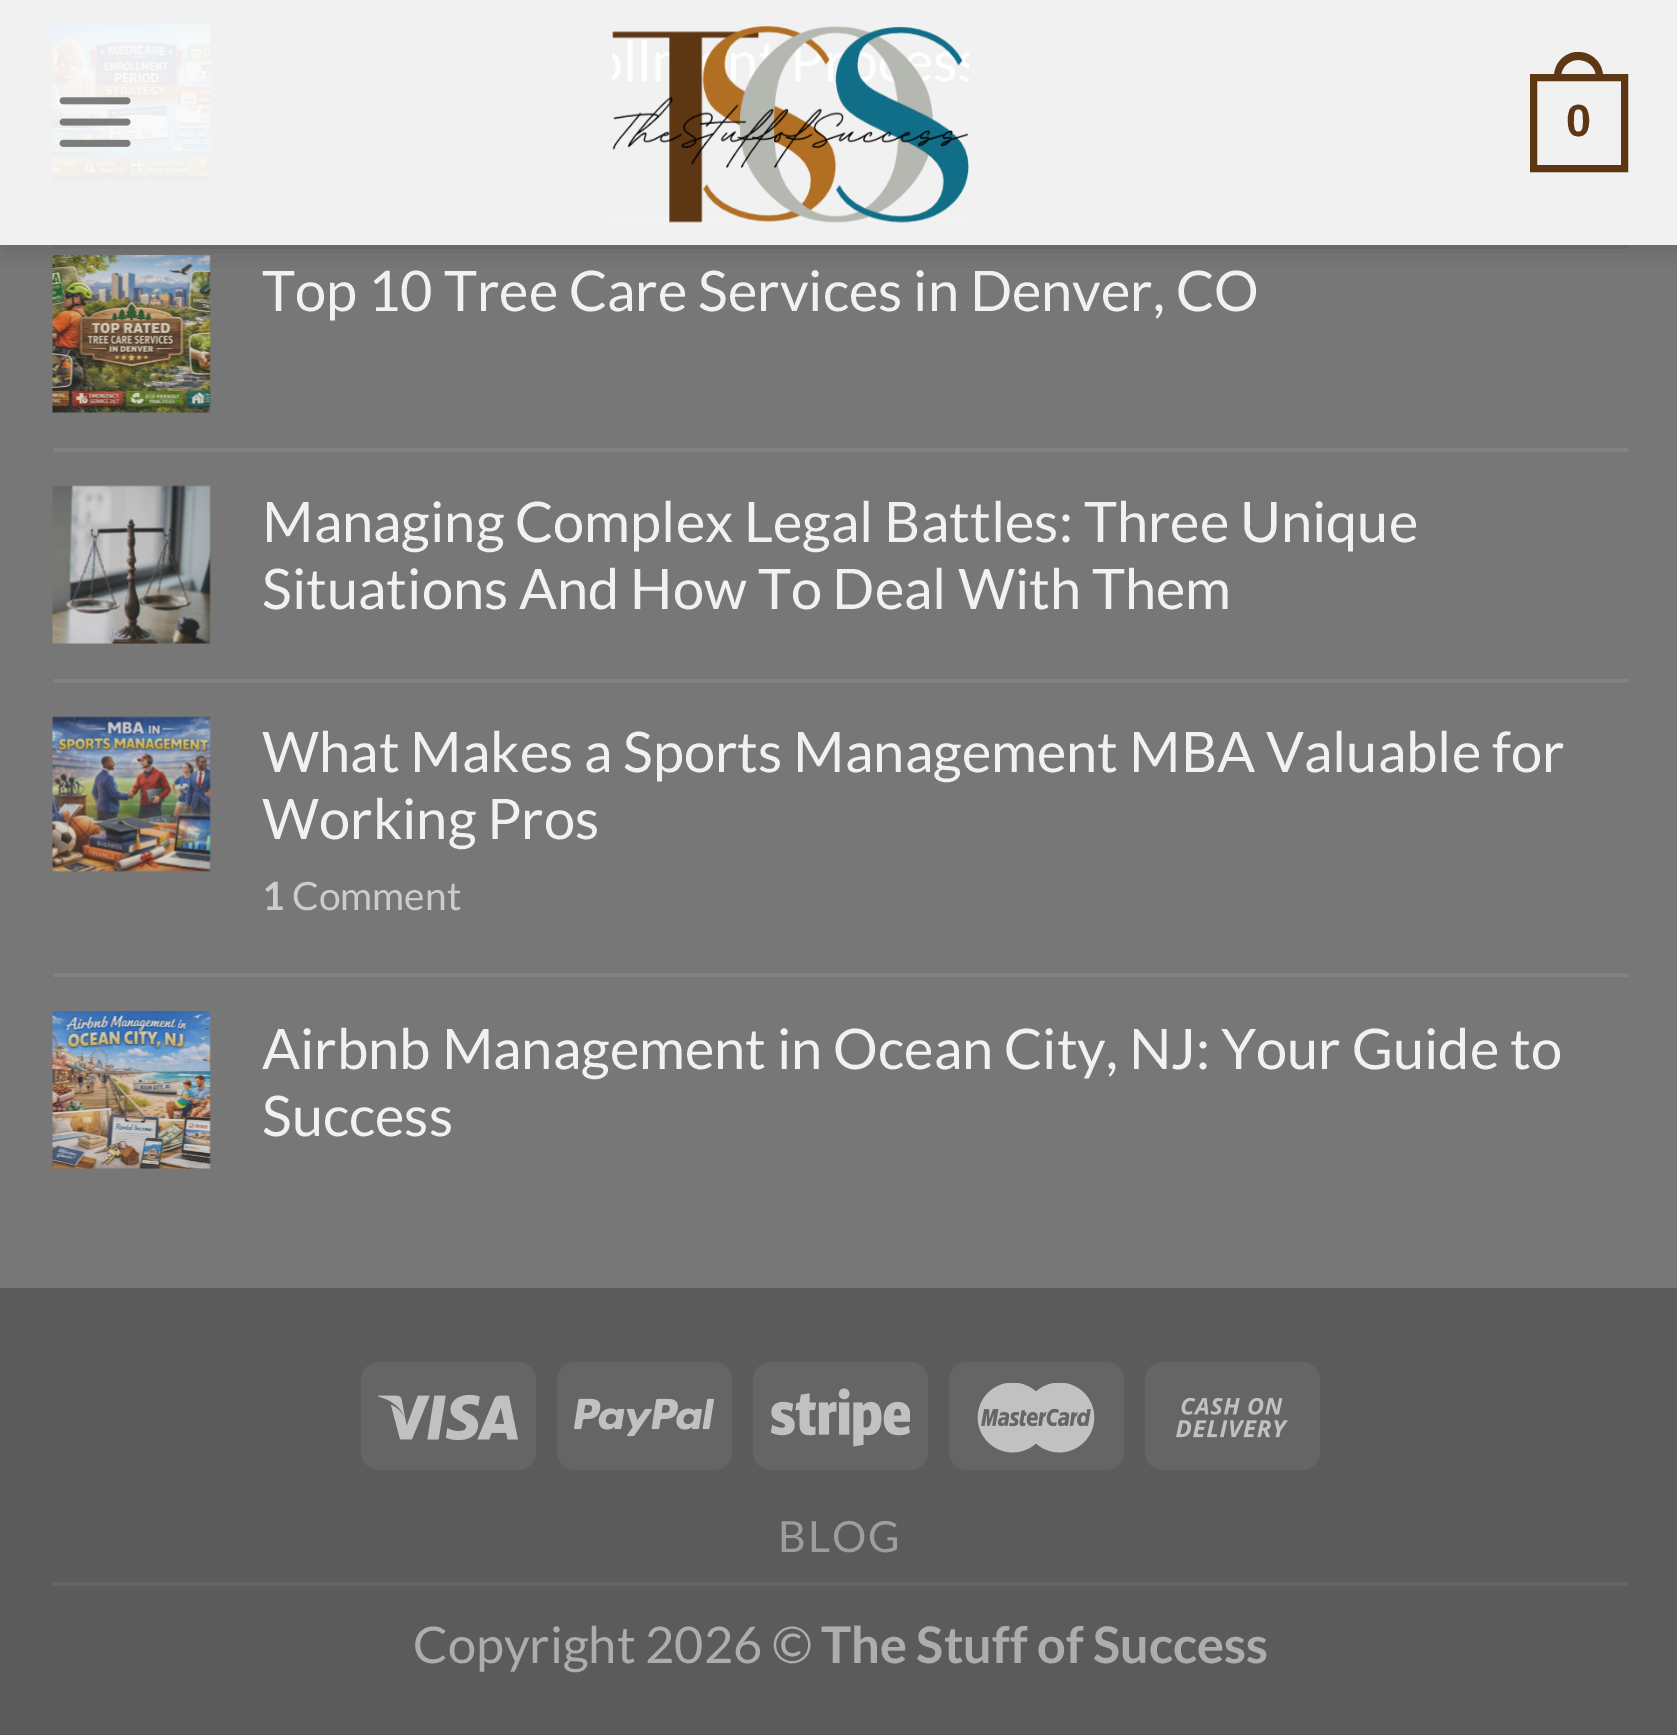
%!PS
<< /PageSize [1677 1735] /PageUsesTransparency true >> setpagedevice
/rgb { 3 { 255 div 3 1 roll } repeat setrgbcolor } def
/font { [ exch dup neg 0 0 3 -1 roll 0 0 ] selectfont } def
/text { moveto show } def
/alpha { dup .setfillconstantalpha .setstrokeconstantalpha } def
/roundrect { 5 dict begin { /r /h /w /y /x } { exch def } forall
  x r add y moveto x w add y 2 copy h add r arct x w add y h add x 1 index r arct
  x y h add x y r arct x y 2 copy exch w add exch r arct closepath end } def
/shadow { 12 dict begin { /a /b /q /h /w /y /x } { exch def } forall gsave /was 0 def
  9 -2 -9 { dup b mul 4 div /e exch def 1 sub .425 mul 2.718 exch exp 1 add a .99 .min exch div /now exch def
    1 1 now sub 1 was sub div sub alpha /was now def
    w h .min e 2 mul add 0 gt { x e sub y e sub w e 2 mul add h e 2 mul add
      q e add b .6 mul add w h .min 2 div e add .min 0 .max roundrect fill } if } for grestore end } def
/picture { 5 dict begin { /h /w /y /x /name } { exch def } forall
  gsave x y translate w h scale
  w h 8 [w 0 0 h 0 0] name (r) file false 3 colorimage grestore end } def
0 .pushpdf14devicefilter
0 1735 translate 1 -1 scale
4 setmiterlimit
119 119 119 rgb
0 0 1677 1735 rectfill
241 241 241 rgb
0 0 1677 245 rectfill
(img_03.rgb) 52 24 159 158 picture
(img_04.rgb) 52 255 159 158 picture
gsave
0 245 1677 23 rectclip
0 0 0 rgb
4 4 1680 245 0 17.5 0.15 shadow
grestore
(img_01.rgb) 59 97 72 50 picture
(img_02.rgb) 612 25 357 198 picture
93 54 20 rgb
7 setlinewidth
1533.5 77.5 91 91 rectstroke
1578 52 moveto 14 0 25 11 25 25 rcurveto 0 3 rlineto -49 0 rlineto 0 -3 rlineto 0 -14 11 -25 24 -25 rcurveto closepath 1578 60 moveto 10 0 18 7 18 17 rcurveto 0 3 rlineto -35 0 rlineto 0 -3 rlineto 0 -10 8 -17 17 -17 rcurveto closepath eofill
103 103 103 rgb
53 245 1575 4 rectfill
130 130 130 rgb
53 448 1575 4 rectfill
(img_05.rgb) 52 485 159 159 picture
53 679 1575 4 rectfill
(img_06.rgb) 52 716 159 156 picture
53 973 1575 4 rectfill
(img_07.rgb) 52 1011 159 158 picture
91 91 91 rgb
0 1288 1677 447 rectfill
101 101 101 rgb
361 1362 175 108 18 roundrect fill
(img_08.rgb) 378 1394 140 47 picture
557 1362 175 108 18 roundrect fill
(img_09.rgb) 574 1398 140 39 picture
753 1362 175 108 18 roundrect fill
(img_10.rgb) 771 1388 139 59 picture
949 1362 175 108 18 roundrect fill
(img_11.rgb) 977 1383 118 70 picture
1145 1362 175 108 18 roundrect fill
(img_12.rgb) 1176 1397 112 41 picture
53 1582 1575 4 rectfill
/LiberationSans-Bold 45 font
93 54 20 rgb
(0) 1566 136 text
/Lato-Regular 56 font
241 241 241 rgb
(Top 10 Tree Care Services in Denver, CO) 262 311 text
(Managing Complex Legal Battles: Three Unique) 262 542 text
(Situations And How To Deal With Them) 262 609 text
(What Makes a Sports Management MBA Valuable for) 262 772 text
(Working Pros) 262 839 text
/Lato-Bold 39 font
204 204 204 rgb
(1) 262 910 text
/Lato-Regular 39 font
(Comment) 292 910 text
/Lato-Regular 56 font
241 241 241 rgb
(Airbnb Management in Ocean City, NJ: Your Guide to) 262 1069 text
(Success) 262 1136 text
/Lato-Regular 43 font
157 157 157 rgb
778 1552 moveto 2 0 (BLOG) ashow
/Lato-Regular 50.5 font
173 173 173 rgb
(Copyright 2026 ©) 413 1663 text
/Lato-Bold 50.5 font
(The Stuff of Success) 821 1663 text
.poppdf14devicefilter showpage
